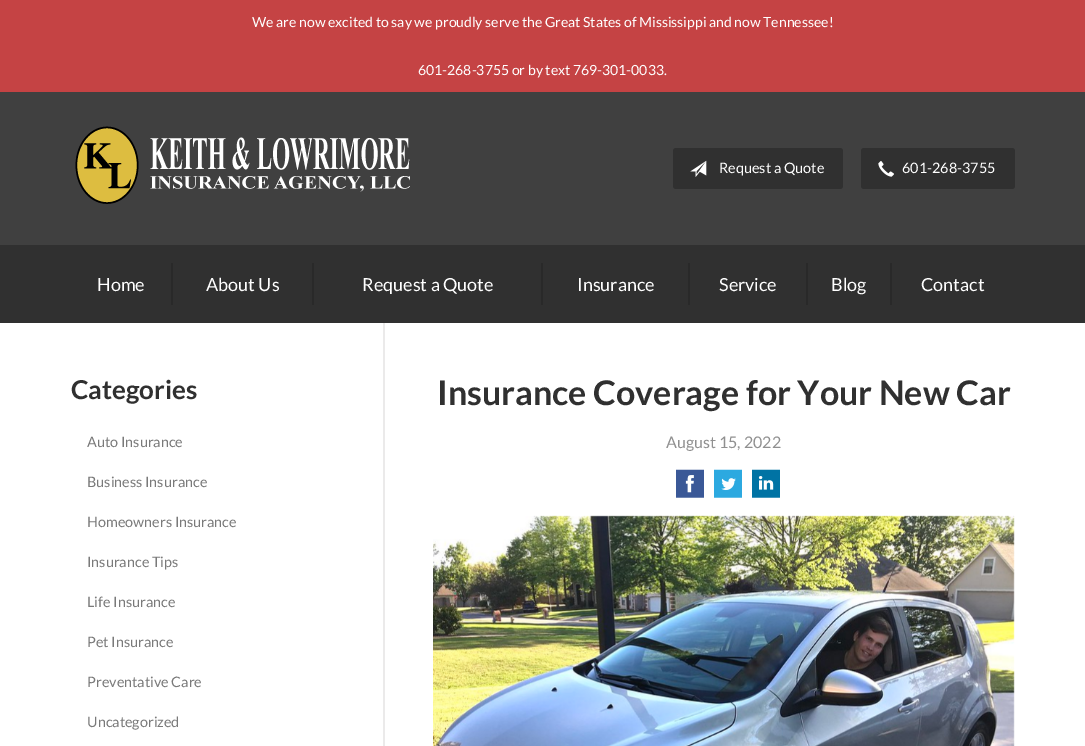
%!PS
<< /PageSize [1085 746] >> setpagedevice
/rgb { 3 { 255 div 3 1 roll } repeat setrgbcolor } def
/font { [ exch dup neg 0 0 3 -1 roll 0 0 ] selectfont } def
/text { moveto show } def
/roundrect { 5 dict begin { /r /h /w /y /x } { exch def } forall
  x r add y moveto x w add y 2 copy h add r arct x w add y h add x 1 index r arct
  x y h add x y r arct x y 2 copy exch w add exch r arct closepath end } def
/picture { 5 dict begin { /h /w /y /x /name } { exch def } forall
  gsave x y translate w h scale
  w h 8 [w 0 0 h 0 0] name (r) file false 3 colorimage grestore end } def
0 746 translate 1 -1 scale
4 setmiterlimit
64 64 64 rgb
0 0 1085 746 rectfill
197 67 68 rgb
0 0 1085 92 rectfill
(img_01.rgb) 75 126 335 78 picture
48 48 48 rgb
673 148 170 41 3 roundrect fill
(img_02.rgb) 690 160 17 17 picture
861 148 154 41 3 roundrect fill
(img_03.rgb) 878 161 16 16 picture
0 245 1085 78 rectfill
41 41 41 rgb
171 263 2 42 rectfill
312 263 2 42 rectfill
541 263 2 42 rectfill
688 263 2 42 rectfill
806 263 2 42 rectfill
890 263 2 42 rectfill
255 255 255 rgb
0 323 1085 423 rectfill
235 234 234 rgb
383 323 2 423 rectfill
(img_04.rgb) 676 469 28 29 picture
(img_05.rgb) 714 469 28 29 picture
(img_06.rgb) 752 469 28 29 picture
(img_07.rgb) 433 515 582 231 picture
/Lato-Regular 14 font
255 255 255 rgb
(We are now excited to say we proudly serve the Great States of Mississippi and now Tennessee!) 252 27 text
(601-268-3755 or by text 769-301-0033.) 418 75 text
/Lato-Regular 14.4 font
(Request a Quote) 719 173 text
(601-268-3755) 902 173 text
/Lato-Regular 18 font
(Home) 97 291 text
(About Us) 206 291 text
(Request a Quote) 362 291 text
(Insurance) 577 291 text
(Service) 719 291 text
(Blog) 831 291 text
(Contact) 921 291 text
/Lato-Bold 26 font
48 48 48 rgb
(Categories) 71 399 text
/Lato-Regular 14.4 font
122 122 122 rgb
(Auto Insurance) 87 447 text
(Business Insurance) 87 487 text
(Homeowners Insurance) 87 527 text
(Insurance Tips) 87 567 text
(Life Insurance) 87 607 text
(Pet Insurance) 87 647 text
(Preventative Care) 87 687 text
(Uncategorized) 87 727 text
/Lato-Bold 34 font
48 48 48 rgb
(Insurance Coverage for Your New Car) 437 405 text
/Lato-Regular 16 font
144 144 144 rgb
(August 15, 2022) 666 448 text
showpage
